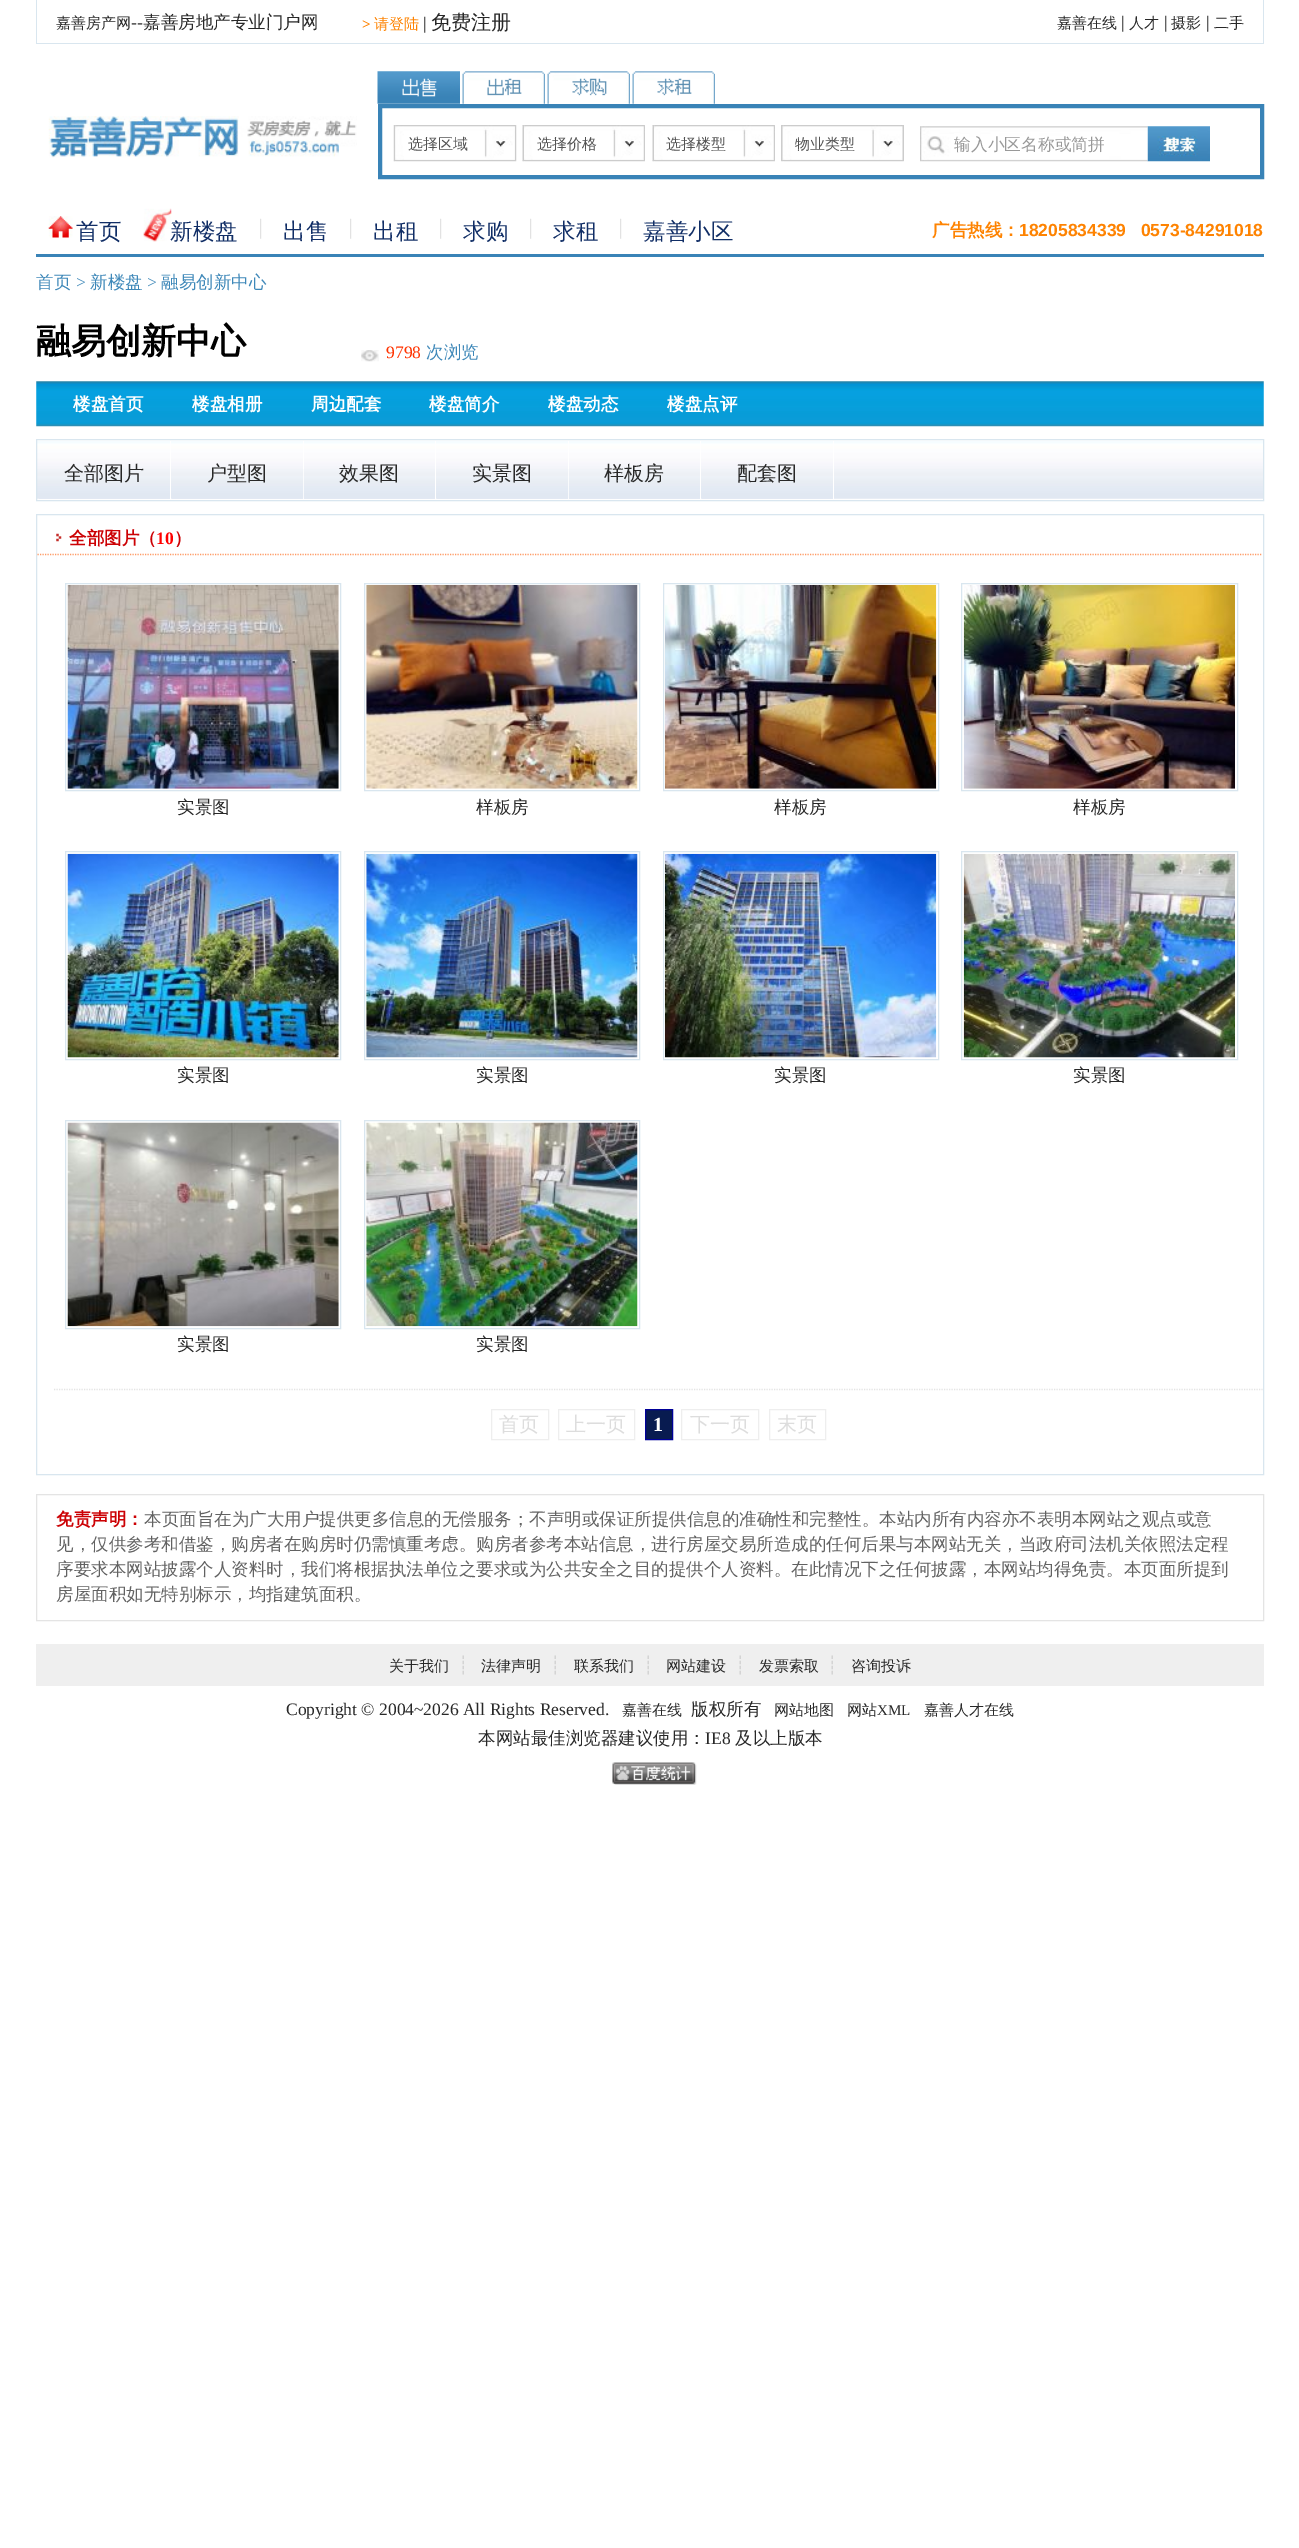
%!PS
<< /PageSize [1299 2548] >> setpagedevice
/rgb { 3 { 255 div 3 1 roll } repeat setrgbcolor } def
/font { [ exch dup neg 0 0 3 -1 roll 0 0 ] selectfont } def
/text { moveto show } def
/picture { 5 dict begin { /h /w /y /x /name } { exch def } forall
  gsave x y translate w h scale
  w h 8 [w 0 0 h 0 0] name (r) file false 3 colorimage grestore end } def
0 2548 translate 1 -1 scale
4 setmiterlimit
255 255 255 rgb
0 0 1299 2548 rectfill
217 230 239 rgb
1263 0 1 44 rectfill
36 43 1228 1 rectfill
36 0 1 44 rectfill
(img_01.rgb) 48 116 309 42 picture
(img_02.rgb) 377 71 83 33 picture
(img_03.rgb) 462 71 83 33 picture
(img_04.rgb) 547 71 83 33 picture
(img_05.rgb) 632 71 83 33 picture
57 131 183 rgb
4 setlinewidth
380 106 882 71 rectstroke
(img_06.rgb) 393 125 124 37 picture
204 204 204 rgb
515 125 1 36 rectfill
394 160 122 1 rectfill
394 125 1 36 rectfill
(img_07.rgb) 522 125 123 37 picture
523 160 122 1 rectfill
523 125 1 36 rectfill
(img_07.rgb) 652 125 123 37 picture
653 160 122 1 rectfill
653 125 1 36 rectfill
(img_08.rgb) 781 125 123 37 picture
903 125 1 36 rectfill
781 160 123 1 rectfill
781 125 1 36 rectfill
(img_10.rgb) 1147 126 63 36 picture
(img_09.rgb) 920 126 228 36 picture
255 255 255 rgb
954 133 6 1 rectfill
57 131 183 rgb
36 254 1228 3 rectfill
(img_11.rgb) 48 216 25 22 picture
(img_12.rgb) 143 208 29 34 picture
(img_13.rgb) 260 218 2 21 picture
(img_13.rgb) 350 218 2 21 picture
(img_13.rgb) 440 218 2 21 picture
(img_13.rgb) 530 218 2 21 picture
(img_13.rgb) 620 218 2 21 picture
(img_14.rgb) 361 350 18 12 picture
(img_15.rgb) 36 381 1228 46 picture
(img_16.rgb) 37 441 1226 58 picture
217 230 239 rgb
1 setlinewidth
36.5 439.5 1227 61 rectstroke
226 232 243 rgb
39 498 132 1 rectfill
255 255 255 rgb
170 441 1 58 rectfill
226 232 243 rgb
172 498 131 1 rectfill
255 255 255 rgb
303 441 1 58 rectfill
(img_17.rgb) 303 469 132 30 picture
435 441 1 58 rectfill
226 232 243 rgb
437 498 131 1 rectfill
255 255 255 rgb
568 441 1 58 rectfill
(img_17.rgb) 568 469 132 30 picture
700 441 1 58 rectfill
226 232 243 rgb
702 498 131 1 rectfill
255 255 255 rgb
833 441 1 58 rectfill
217 230 239 rgb
36.5 514.5 1227 960 rectstroke
(img_18.rgb) 56 533 6 9 picture
255 155 101 rgb
1.2 setlinewidth
[1.25 1.25] 0 setdash
37.5 554.5 moveto 1225 0 rlineto stroke
217 230 239 rgb
1 setlinewidth
[] 0 setdash
65.5 583.5 275 207 rectstroke
(img_19.rgb) 67 585 272 204 picture
364.5 583.5 275 207 rectstroke
(img_20.rgb) 366 585 272 204 picture
663.5 583.5 275 207 rectstroke
(img_21.rgb) 665 585 272 204 picture
961.5 583.5 276 207 rectstroke
(img_22.rgb) 963 585 272 204 picture
65.5 851.5 275 208 rectstroke
(img_23.rgb) 67 853 272 205 picture
364.5 851.5 275 208 rectstroke
(img_24.rgb) 366 853 272 205 picture
663.5 851.5 275 208 rectstroke
(img_25.rgb) 665 853 272 205 picture
961.5 851.5 276 208 rectstroke
(img_26.rgb) 963 853 272 205 picture
65.5 1120.5 275 208 rectstroke
(img_27.rgb) 67 1122 272 205 picture
364.5 1120.5 275 208 rectstroke
(img_28.rgb) 366 1122 272 205 picture
228 228 228 rgb
1.2 setlinewidth
[1.25 1.25] 0 setdash
54 1389.5 moveto 1208.5 0 rlineto stroke
238 238 238 rgb
1 setlinewidth
[] 0 setdash
491.5 1409.5 57 30 rectstroke
558.5 1409.5 76 30 rectstroke
8 27 80 rgb
645.5 1409.5 moveto 27 0 rlineto 0 30 rlineto -27 0 rlineto closepath gsave fill grestore
0 0 153 rgb
stroke
238 238 238 rgb
681.5 1409.5 77 30 rectstroke
769.5 1409.5 56 30 rectstroke
228 228 228 rgb
36.5 1494.5 1227 126 rectstroke
239 239 239 rgb
36 1644 1228 42 rectfill
(img_29.rgb) 612 1762 85 23 picture
/WenQuanYiZenHei-Medium 15 font
40 40 40 rgb
(嘉善房产网) 56 28 text
/LiberationSerif-Regular 17.5 font
(--) 131 28 text
/WenQuanYiZenHei-Medium 17.5 font
(嘉善房地产专业门户网) 143 28 text
/LiberationSerif-Bold 15 font
254 131 1 rgb
(>) 362 29 text
/WenQuanYiZenHei-Medium 15 font
(请登陆) 374 29 text
/LiberationSerif-Regular 17.5 font
40 40 40 rgb
(|) 423 29 text
/WenQuanYiZenHei-Medium 20 font
(免费注册) 431 29 text
/WenQuanYiZenHei-Medium 15 font
(嘉善在线) 1057 28 text
/LiberationSerif-Regular 17.5 font
(|) 1121 28 text
/WenQuanYiZenHei-Medium 15 font
(人才) 1129 28 text
/LiberationSerif-Regular 17.5 font
(|) 1164 28 text
/WenQuanYiZenHei-Medium 15 font
(摄影) 1171 28 text
/LiberationSerif-Regular 17.5 font
(|) 1206 28 text
/WenQuanYiZenHei-Medium 15 font
(二手) 1214 28 text
83 83 83 rgb
(选择区域) 408 149 text
(选择价格) 537 149 text
(选择楼型) 666 149 text
(物业类型) 795 149 text
/WenQuanYiZenHei-Medium 16.75 font
153 153 153 rgb
(输入小区名称或简拼) 954 150 text
/WenQuanYiZenHei-Medium 22.5 font
17 46 102 rgb
(首页) 76 239 text
(新楼盘) 170 239 text
(出售) 283 239 text
(出租) 373 239 text
(求购) 463 239 text
(求租) 553 239 text
(嘉善小区) 643 239 text
/WenQuanYiZenHei-Bold 17.5 font
254 131 1 rgb
(广告热线：) 932 236 text
/LiberationSans-Bold 17.5 font
(18205834339   0573-84291018) 1019 236 text
/WenQuanYiZenHei-Medium 17.5 font
62 136 185 rgb
(首页) 36 288 text
/LiberationSerif-Regular 17.5 font
(>) 76 288 text
/WenQuanYiZenHei-Medium 17.5 font
(新楼盘) 90 288 text
/LiberationSerif-Regular 17.5 font
(>) 147 288 text
/WenQuanYiZenHei-Medium 17.5 font
(融易创新中心) 161 288 text
/WenQuanYiZenHei-Bold 35 font
0 0 0 rgb
(融易创新中心) 36 353 text
/LiberationSerif-Regular 17.5 font
255 51 0 rgb
(9798) 386 358 text
/WenQuanYiZenHei-Medium 17.5 font
62 136 185 rgb
(次浏览) 426 358 text
/WenQuanYiZenHei-Bold 17.5 font
255 255 255 rgb
(楼盘首页) 73 410 text
(楼盘相册) 192 410 text
(周边配套) 311 410 text
(楼盘简介) 429 410 text
(楼盘动态) 548 410 text
(楼盘点评) 667 410 text
/WenQuanYiZenHei-Medium 20 font
40 40 40 rgb
(全部图片) 64 480 text
(户型图) 207 480 text
(效果图) 339 480 text
(实景图) 472 480 text
(样板房) 604 480 text
(配套图) 737 480 text
/WenQuanYiZenHei-Bold 17.5 font
204 1 4 rgb
(全部图片（) 69 544 text
/LiberationSerif-Bold 17.5 font
255 0 0 rgb
(10) 156 544 text
/WenQuanYiZenHei-Bold 17.5 font
204 1 4 rgb
(）) 174 544 text
/WenQuanYiZenHei-Medium 17.5 font
40 40 40 rgb
(实景图) 177 813 text
(样板房) 476 813 text
(样板房) 774 813 text
(样板房) 1073 813 text
(实景图) 177 1081 text
(实景图) 476 1081 text
(实景图) 774 1081 text
(实景图) 1073 1081 text
(实景图) 177 1350 text
(实景图) 476 1350 text
/WenQuanYiZenHei-Medium 20 font
221 221 221 rgb
(首页) 499 1431 text
(上一页) 566 1431 text
/LiberationSerif-Bold 20 font
255 255 255 rgb
(1) 653 1431 text
/WenQuanYiZenHei-Medium 20 font
221 221 221 rgb
(下一页) 690 1431 text
(末页) 777 1431 text
/WenQuanYiZenHei-Bold 17.5 font
204 1 4 rgb
(免责声明：) 56 1525 text
/WenQuanYiZenHei-Medium 17.5 font
98 98 98 rgb
(本页面旨在为广大用户提供更多信息的无偿服务；不声明或保证所提供信息的准确性和完整性。本站内所有内容亦不表明本网站之观点或意) 144 1525 text
(见，仅供参考和借鉴，购房者在购房时仍需慎重考虑。购房者参考本站信息，进行房屋交易所造成的任何后果与本网站无关，当政府司法机关依照法定程) 56 1550 text
(序要求本网站披露个人资料时，我们将根据执法单位之要求或为公共安全之目的提供个人资料。在此情况下之任何披露，本网站均得免责。本页面所提到) 56 1575 text
(房屋面积如无特别标示，均指建筑面积。) 56 1600 text
/WenQuanYiZenHei-Medium 15 font
40 40 40 rgb
(关于我们) 389 1671 text
/DejaVuSans-Regular 17.5 font
212 212 212 rgb
(┊) 458 1671 text
/WenQuanYiZenHei-Medium 15 font
40 40 40 rgb
(法律声明) 481 1671 text
/DejaVuSans-Regular 17.5 font
212 212 212 rgb
(┊) 550 1671 text
/WenQuanYiZenHei-Medium 15 font
40 40 40 rgb
(联系我们) 574 1671 text
/DejaVuSans-Regular 17.5 font
212 212 212 rgb
(┊) 643 1671 text
/WenQuanYiZenHei-Medium 15 font
40 40 40 rgb
(网站建设) 666 1671 text
/DejaVuSans-Regular 17.5 font
212 212 212 rgb
(┊) 735 1671 text
/WenQuanYiZenHei-Medium 15 font
40 40 40 rgb
(发票索取) 759 1671 text
/DejaVuSans-Regular 17.5 font
212 212 212 rgb
(┊) 827 1671 text
/WenQuanYiZenHei-Medium 15 font
40 40 40 rgb
(咨询投诉) 851 1671 text
/LiberationSerif-Regular 17.5 font
(Copyright © 2004~2026 All Rights Reserved.) 286 1715 text
/WenQuanYiZenHei-Medium 15 font
(嘉善在线) 622 1715 text
/WenQuanYiZenHei-Medium 17.5 font
(版权所有) 691 1715 text
/WenQuanYiZenHei-Medium 15 font
(网站地图) 774 1715 text
(网站) 847 1715 text
/LiberationSerif-Regular 15 font
(XML) 877 1715 text
/WenQuanYiZenHei-Medium 15 font
(嘉善人才在线) 924 1715 text
/WenQuanYiZenHei-Medium 17.5 font
(本网站最佳浏览器建议使用：) 478 1744 text
/LiberationSerif-Regular 17.5 font
(IE8) 705 1744 text
/WenQuanYiZenHei-Medium 17.5 font
(及以上版本) 735 1744 text
showpage
